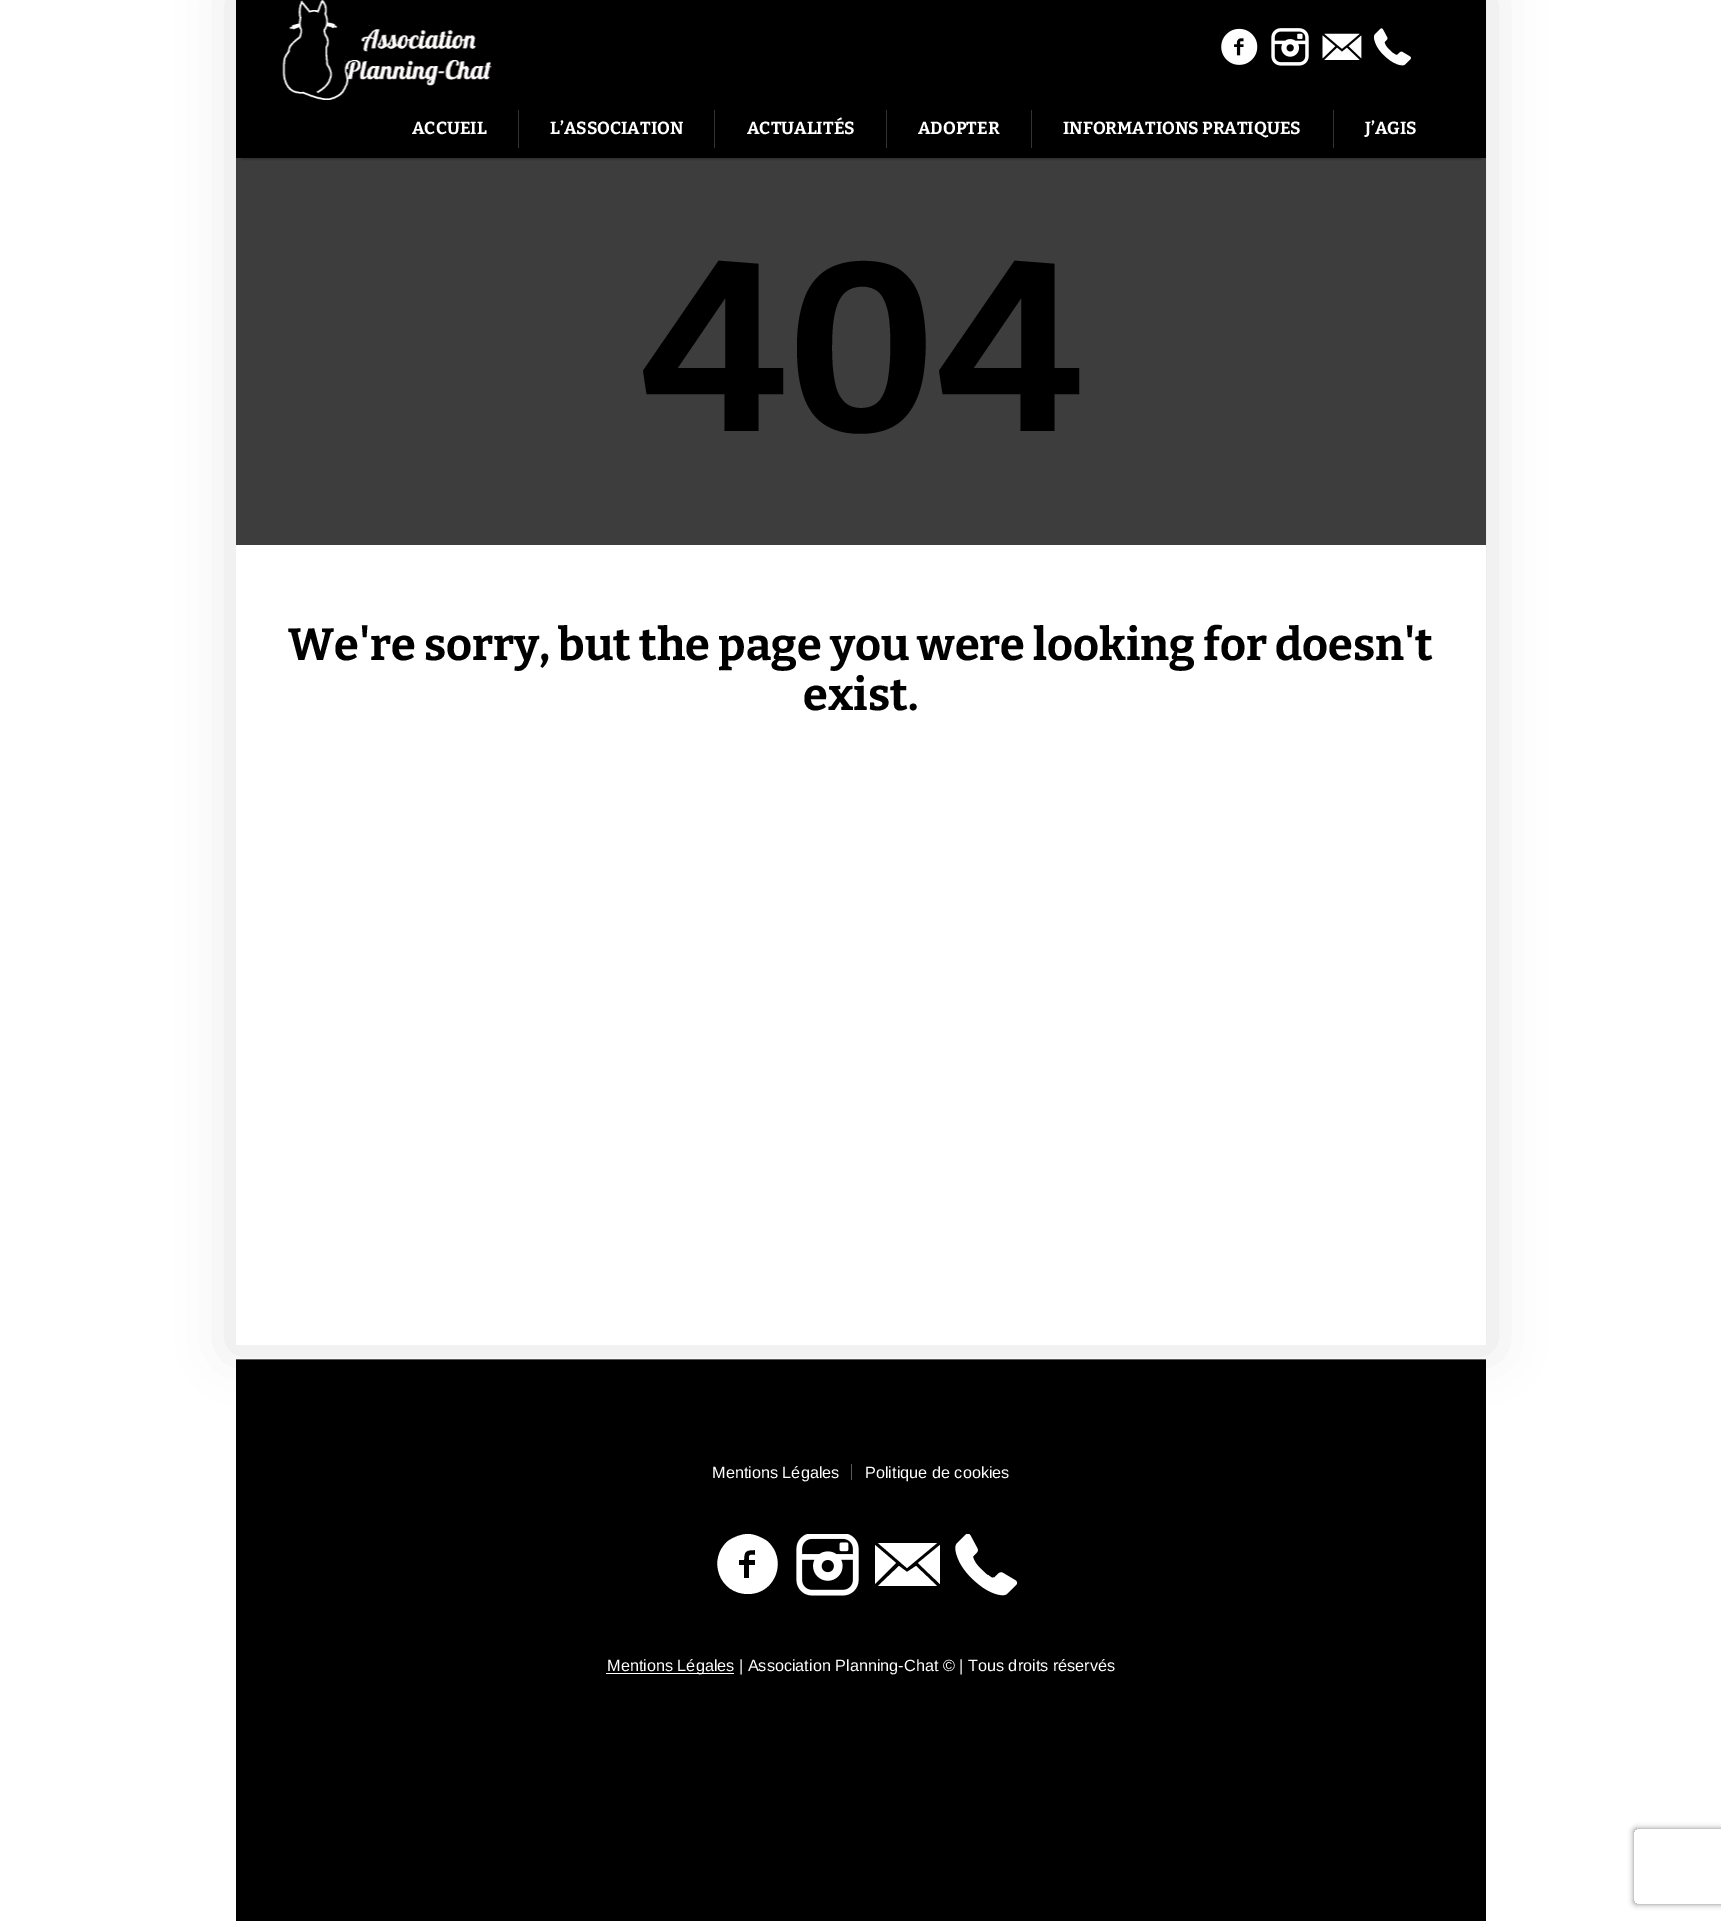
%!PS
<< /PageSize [1721 1921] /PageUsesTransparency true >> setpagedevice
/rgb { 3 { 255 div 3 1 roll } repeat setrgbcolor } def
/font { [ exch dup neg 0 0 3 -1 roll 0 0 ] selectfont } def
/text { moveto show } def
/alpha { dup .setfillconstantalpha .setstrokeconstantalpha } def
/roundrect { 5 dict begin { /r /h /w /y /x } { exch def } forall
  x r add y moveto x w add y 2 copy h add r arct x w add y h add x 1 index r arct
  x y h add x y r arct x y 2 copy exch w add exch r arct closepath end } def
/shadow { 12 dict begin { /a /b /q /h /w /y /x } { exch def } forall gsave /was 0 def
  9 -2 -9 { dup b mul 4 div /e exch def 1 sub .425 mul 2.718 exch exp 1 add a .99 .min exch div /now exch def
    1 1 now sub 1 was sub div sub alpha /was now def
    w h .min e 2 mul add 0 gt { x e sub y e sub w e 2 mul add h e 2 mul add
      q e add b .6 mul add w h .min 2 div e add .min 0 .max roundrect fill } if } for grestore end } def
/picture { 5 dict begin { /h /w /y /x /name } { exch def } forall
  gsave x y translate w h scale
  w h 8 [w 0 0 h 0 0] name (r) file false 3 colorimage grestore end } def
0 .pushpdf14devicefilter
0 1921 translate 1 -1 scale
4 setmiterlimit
255 255 255 rgb
0 0 1721 1921 rectfill
gsave
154 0 moveto 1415 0 rlineto 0 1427 rlineto -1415 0 rlineto closepath 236 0 moveto 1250 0 rlineto 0 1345 rlineto -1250 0 rlineto closepath eoclip newpath
0 0 0 rgb
230 -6 1263 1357 0 25 0.11 shadow
grestore
61 61 61 rgb
236 158 1250 387 rectfill
0 0 0 rgb
241 13 1240 147 0 1 0.2 shadow
236 0 1250 158 rectfill
(img_01.rgb) 282 0 210 100 picture
(img_02.rgb) 1221 28 37 37 picture
(img_03.rgb) 1271 28 38 38 picture
(img_04.rgb) 1322 33 40 27 picture
(img_05.rgb) 1373 28 38 38 picture
51 51 51 rgb
518 110 1 38 rectfill
714 110 1 38 rectfill
886 110 1 38 rectfill
1031 110 1 38 rectfill
1333 110 1 38 rectfill
255 255 255 rgb
236 545 1 238 rectfill
0 0 0 rgb
236 1360 1250 561 rectfill
90 90 90 rgb
236 1359 1250 1 rectfill
851 1464 1 16 rectfill
255 255 255 rgb
748 1534 moveto 6 0 13 3 19 7 rcurveto 21 18 9 53 -19 53 rcurveto -29 0 -41 -35 -20 -53 rcurveto 6 -4 13 -7 20 -7 rcurveto closepath 755 1555 moveto 0 -5 rlineto -9 0 -11 1 -11 10 rcurveto -5 0 rlineto 0 5 rlineto 5 0 rlineto 0 13 rlineto 5 0 rlineto 0 -13 rlineto 6 0 rlineto 0 -5 rlineto -6 0 rlineto 0 -6 0 -5 6 -5 rcurveto closepath fill
(img_06.rgb) 796 1534 63 62 picture
875 1582 moveto 0 -37 rlineto 21 18 rlineto -21 21 rlineto closepath 878 1543 moveto 59 0 rlineto -30 25 rlineto closepath 878 1586 moveto 21 -20 rlineto 8 6 rlineto 9 -6 rlineto 21 20 rlineto closepath 918 1563 moveto 22 -18 rlineto 0 39 rlineto closepath fill
(img_07.rgb) 955 1534 63 62 picture
606 1673 128 1 rectfill
gsave
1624 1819 moveto 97 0 rlineto 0 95 rlineto -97 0 rlineto closepath 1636.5 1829 moveto 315 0 rlineto 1.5 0 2.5 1 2.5 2.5 rcurveto 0 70 rlineto 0 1.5 -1 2.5 -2.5 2.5 rcurveto -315 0 rlineto -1.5 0 -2.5 -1 -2.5 -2.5 rcurveto 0 -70 rlineto 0 -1.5 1 -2.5 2.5 -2.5 rcurveto closepath eoclip newpath
128 128 128 rgb
1634 1829 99 75 2.5 3 1 shadow
grestore
/Bitter-Bold 17.5 font
(ACCUEIL) 412 134 text
(L’ASSOCIATION) 550 134 text
(ACTUALITÉS) 747 134 text
(ADOPTER) 918 134 text
(INFORMATIONS PRATIQUES) 1063 134 text
(J’AGIS) 1365 134 text
/Bitter-Bold 238 font
0 0 0 rgb
(404) 641 431 text
/Bitter-Bold 45 font
(We're sorry, but the page you were looking for doesn't) 288 660 text
(exist.) 803 710 text
/LiberationSans-Regular 16.25 font
255 255 255 rgb
(Mentions Légales) 712 1478 text
(Politique de cookies) 865 1478 text
(Mentions Légales | Association Planning-Chat © | Tous droits réservés) 607 1671 text
.poppdf14devicefilter showpage
